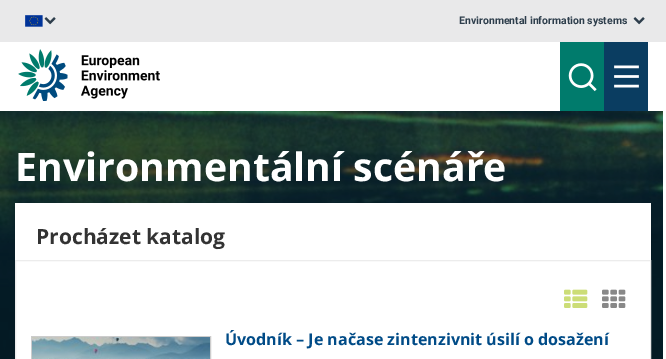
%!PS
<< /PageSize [666 359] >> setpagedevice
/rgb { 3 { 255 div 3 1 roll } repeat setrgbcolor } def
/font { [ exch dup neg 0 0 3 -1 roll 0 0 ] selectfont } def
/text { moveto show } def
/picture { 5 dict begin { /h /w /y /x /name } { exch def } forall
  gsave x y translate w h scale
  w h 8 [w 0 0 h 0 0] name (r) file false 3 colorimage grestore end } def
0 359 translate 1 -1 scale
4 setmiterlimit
255 255 255 rgb
0 0 666 359 rectfill
233 233 234 rgb
0 0 666 42 rectfill
(img_01.rgb) 25 15 18 12 picture
(img_02.rgb) 44 17 12 8 picture
(img_02.rgb) 633 17 12 8 picture
(img_03.rgb) 18 49 142 52 picture
0 123 108 rgb
560 42 44 69 rectfill
(img_04.rgb) 568 63 29 29 picture
10 61 97 rgb
604 42 44 69 rectfill
(img_05.rgb) 614 65 25 23 picture
(img_06.rgb) 0 111 663 248 picture
255 255 255 rgb
15 203 636 156 rectfill
236 236 236 rgb
15.5 260.5 635 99 rectstroke
(img_07.rgb) 564 289 24 19 picture
(img_08.rgb) 602 289 24 19 picture
204 204 204 rgb
31.5 336.5 179 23 rectstroke
(img_09.rgb) 32 337 178 22 picture
/Roboto-Bold 10.5 font
46 62 76 rgb
(Environmental information systems) 459 24 text
/OpenSans-Bold 39.25 font
255 255 255 rgb
(Environmentální scénáře) 15 181 text
/OpenSans-Bold 21 font
51 51 51 rgb
(Procházet katalog) 36 244 text
/OpenSans-Bold 16.1 font
0 75 135 rgb
(Úvodník – Je načase zintenzivnit úsilí o dosažení) 225 345 text
showpage
